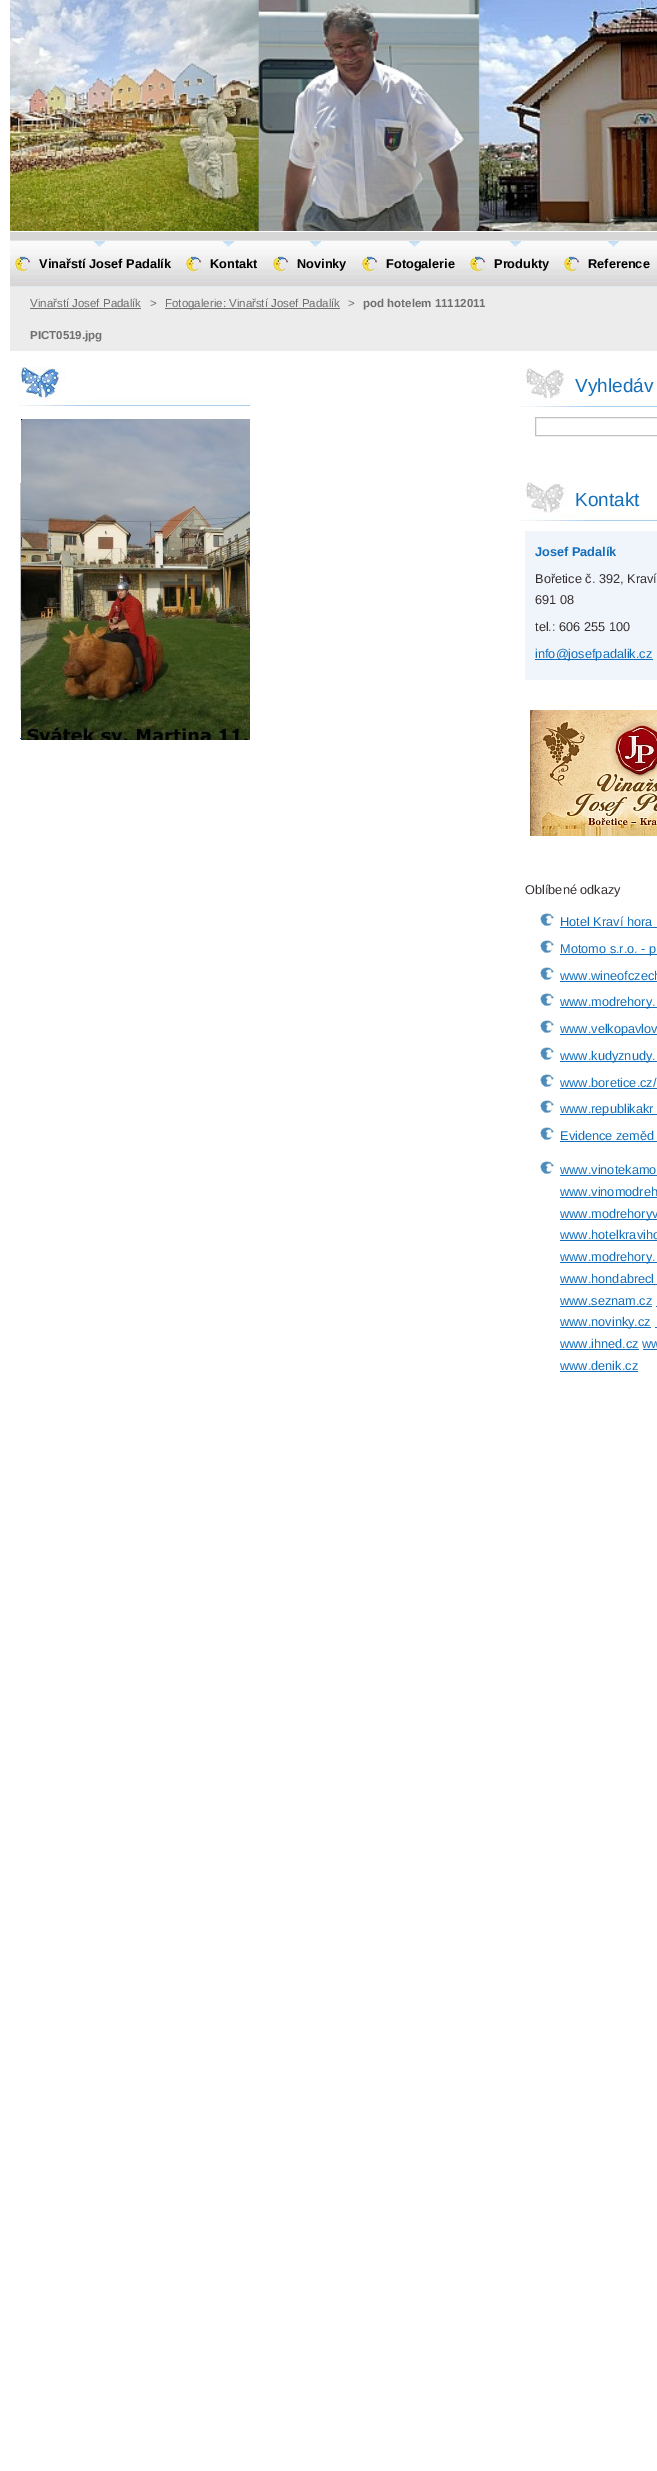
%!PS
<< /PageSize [657 2471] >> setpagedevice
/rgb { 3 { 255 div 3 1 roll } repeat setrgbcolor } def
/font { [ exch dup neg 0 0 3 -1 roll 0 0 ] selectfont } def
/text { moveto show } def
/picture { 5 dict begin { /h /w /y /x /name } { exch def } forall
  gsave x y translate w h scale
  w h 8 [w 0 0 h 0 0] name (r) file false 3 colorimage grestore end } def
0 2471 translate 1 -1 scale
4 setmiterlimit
255 255 255 rgb
0 0 657 2471 rectfill
215 215 215 rgb
10 232 647 8 rectfill
(img_01.rgb) 10 0 647 231 picture
(img_02.rgb) 10 241 647 45 picture
229 229 229 rgb
10 240 647 1 rectfill
221 234 243 rgb
10 286 647 1 rectfill
(img_03.rgb) 15 256 16 16 picture
(img_04.rgb) 94 241 11 6 picture
(img_03.rgb) 186 256 16 16 picture
(img_04.rgb) 223 241 11 6 picture
(img_03.rgb) 273 256 16 16 picture
(img_04.rgb) 310 241 11 6 picture
(img_03.rgb) 362 256 16 16 picture
(img_04.rgb) 409 241 11 6 picture
(img_03.rgb) 470 256 16 16 picture
(img_04.rgb) 510 241 11 6 picture
(img_03.rgb) 564 256 16 16 picture
(img_04.rgb) 608 241 11 6 picture
236 236 236 rgb
10 287 647 64 rectfill
111 111 111 rgb
30 308 111 1 rectfill
165 308 175 1 rectfill
(img_05.rgb) 18 367 232 39 picture
198 198 198 rgb
20.5 483.5 226 226 rectstroke
(img_06.rgb) 21 419 229 321 picture
19 111 188 rgb
20 738 1 1 rectfill
(img_07.rgb) 520 368 137 39 picture
193 193 193 rgb
535.5 417.5 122 18 rectstroke
(img_07.rgb) 520 482 137 39 picture
240 244 251 rgb
525 531 132 149 rectfill
19 111 188 rgb
535 659 118 1 rectfill
(img_08.rgb) 530 710 127 126 picture
(img_09.rgb) 540 913 14 13 picture
560 927 97 1 rectfill
(img_09.rgb) 540 940 14 13 picture
560 954 97 1 rectfill
(img_09.rgb) 540 967 14 13 picture
560 981 97 1 rectfill
(img_09.rgb) 540 993 14 13 picture
560 1007 97 1 rectfill
(img_09.rgb) 540 1020 14 13 picture
560 1034 97 1 rectfill
(img_09.rgb) 540 1047 14 13 picture
560 1061 97 1 rectfill
(img_09.rgb) 540 1074 14 13 picture
560 1088 97 1 rectfill
(img_09.rgb) 540 1100 14 13 picture
560 1114 97 1 rectfill
(img_09.rgb) 540 1127 14 13 picture
560 1141 97 1 rectfill
(img_09.rgb) 540 1161 14 13 picture
560 1175 97 1 rectfill
560 1197 97 1 rectfill
560 1219 97 1 rectfill
560 1240 97 1 rectfill
560 1262 97 1 rectfill
560 1284 97 1 rectfill
560 1306 92 1 rectfill
656 1306 1 1 rectfill
560 1327 91 1 rectfill
655 1327 2 1 rectfill
560 1349 79 1 rectfill
643 1349 14 1 rectfill
560 1371 78 1 rectfill
/LiberationSans-Bold 12.75 font
0 0 0 rgb
(Vinařstí Josef Padalík) 39 268 text
(Kontakt) 210 268 text
(Novinky) 297 268 text
(Fotogalerie) 386 268 text
(Produkty) 494 268 text
(Reference) 588 268 text
/LiberationSans-Regular 11.5 font
111 111 111 rgb
(Vinařstí Josef Padalík) 30 307 text
(>) 150 307 text
(Fotogalerie: Vinařstí Josef Padalík) 165 307 text
(>) 348 307 text
/LiberationSans-Bold 11.5 font
(pod hotelem 11112011) 363 307 text
(PICT0519.jpg) 30 339 text
/LiberationSans-Regular 19 font
19 111 188 rgb
(Vyhledáv) 575 392 text
(Kontakt) 575 506 text
/LiberationSans-Bold 12.75 font
(Josef Padalík) 535 556 text
/LiberationSans-Regular 12.75 font
53 46 46 rgb
(Bořetice č. 392, Kraví) 535 583 text
(691 08) 535 604 text
(tel.: 606 255 100) 535 631 text
19 111 188 rgb
(info@josefpadalik.cz) 535 658 text
53 46 46 rgb
(Oblíbené odkazy) 525 894 text
19 111 188 rgb
(Hotel Kraví hora) 560 926 text
(Motomo s.r.o. - p) 560 953 text
(www.wineofczech) 560 980 text
(www.modrehory.) 560 1006 text
(www.velkopavlov) 560 1033 text
(www.kudyznudy.) 560 1060 text
(www.boretice.cz/) 560 1087 text
(www.republikakr) 560 1113 text
(Evidence zeměd) 560 1140 text
(www.vinotekamo) 560 1174 text
(www.vinomodreh) 560 1196 text
(www.modrehoryv) 560 1218 text
(www.hotelkraviho) 560 1239 text
(www.modrehory.) 560 1261 text
(www.hondabrecl) 560 1283 text
(www.seznam.cz) 560 1305 text
(www.novinky.cz) 560 1326 text
(www.ihned.cz ww) 560 1348 text
(www.denik.cz) 560 1370 text
showpage
